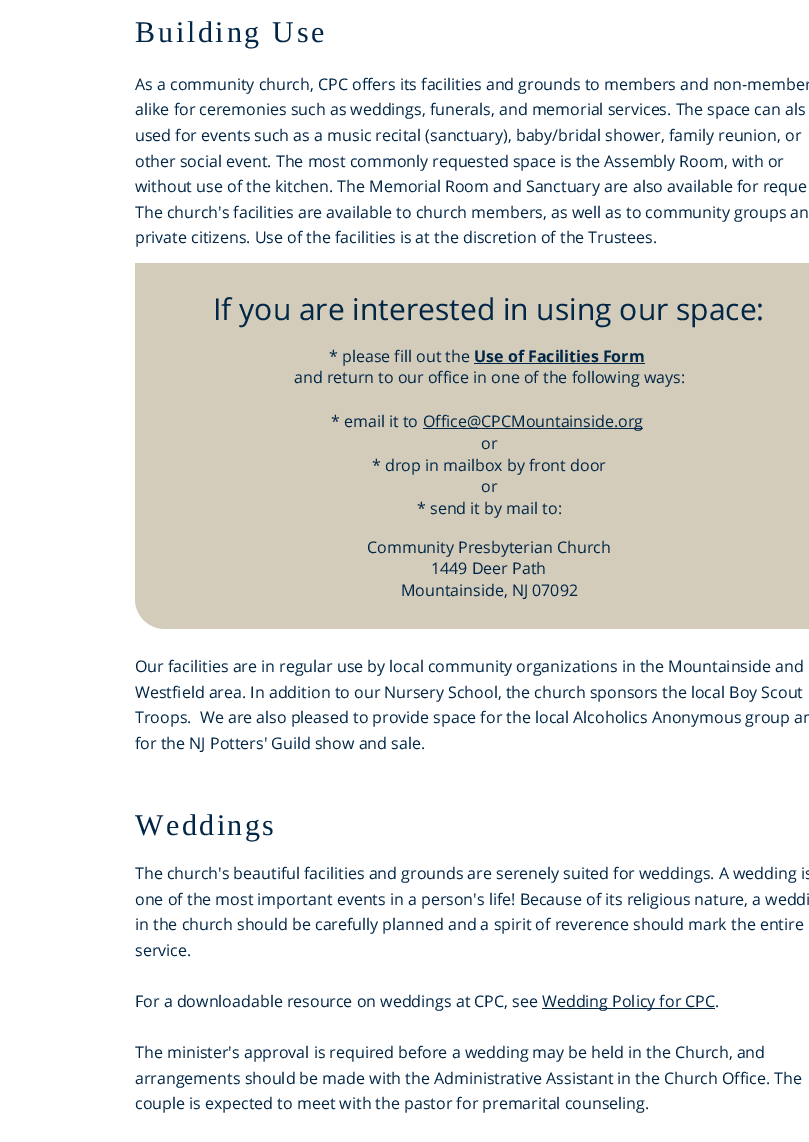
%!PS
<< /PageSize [809 1142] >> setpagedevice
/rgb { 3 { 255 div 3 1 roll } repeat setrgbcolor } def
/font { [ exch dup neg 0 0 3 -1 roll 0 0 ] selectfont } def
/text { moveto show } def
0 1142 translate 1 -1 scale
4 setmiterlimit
255 255 255 rgb
0 0 809 1142 rectfill
1 38 70 rgb
542 1008 173 1 rectfill
211 204 186 rgb
135 263 moveto 674 0 rlineto 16.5 0 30 13.5 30 30 rcurveto 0 336 rlineto -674 0 rlineto -16.5 0 -30 -13.5 -30 -30 rcurveto closepath fill
1 38 70 rgb
474 363 171 1 rectfill
423 428 220 1 rectfill
/LiberationSerif-Regular 30 font
135 42 moveto 2.75 0 (Building Use) ashow
/OpenSans-Regular 16 font
(As a community church, CPC offers its facilities and grounds to members and non-member) 135 90 text
(alike for ceremonies such as weddings, funerals, and memorial services. The space can als) 135 115 text
(used for events such as a music recital \(sanctuary\), baby/bridal shower, family reunion, or) 135 141 text
(other social event. The most commonly requested space is the Assembly Room, with or) 135 167 text
(without use of the kitchen. The Memorial Room and Sanctuary are also available for reque) 135 192 text
(The church's facilities are available to church members, as well as to community groups an) 135 218 text
(private citizens. Use of the facilities is at the discretion of the Trustees.) 135 243 text
(Our facilities are in regular use by local community organizations in the Mountainside and) 135 672 text
(Westfield area. In addition to our Nursery School, the church sponsors the local Boy Scout) 135 698 text
(Troops.  We are also pleased to provide space for the local Alcoholics Anonymous group an) 135 723 text
(for the NJ Potters' Guild show and sale.) 135 749 text
/LiberationSerif-Regular 30 font
135 835 moveto 2.5 0 (Weddings) ashow
/OpenSans-Regular 16 font
(The church's beautiful facilities and grounds are serenely suited for weddings. A wedding is) 135 879 text
(one of the most important events in a person's life! Because of its religious nature, a weddi) 135 905 text
(in the church should be carefully planned and a spirit of reverence should mark the entire) 135 930 text
(service.) 135 956 text
(For a downloadable resource on weddings at CPC, see) 135 1007 text
(Wedding Policy for CPC.) 542 1007 text
(The minister's approval is required before a wedding may be held in the Church, and) 135 1058 text
(arrangements should be made with the Administrative Assistant in the Church Office. The) 135 1084 text
(couple is expected to meet with the pastor for premarital counseling.) 135 1109 text
/OpenSans-Regular 30 font
(If you are interested in using our space:) 213 320 text
/OpenSans-Regular 16 font
(* please fill out the) 329 362 text
/OpenSans-Bold 16 font
(Use of Facilities Form) 474 362 text
/OpenSans-Regular 16 font
(and return to our office in one of the following ways:) 294 383 text
(* email it to) 331 427 text
(Office@CPCMountainside.org) 423 427 text
(or) 481 449 text
(* drop in mailbox by front door) 372 471 text
(or) 481 492 text
(* send it by mail to:) 417 514 text
(Community Presbyterian Church) 367 553 text
(1449 Deer Path) 431 574 text
(Mountainside, NJ 07092) 401 596 text
showpage
